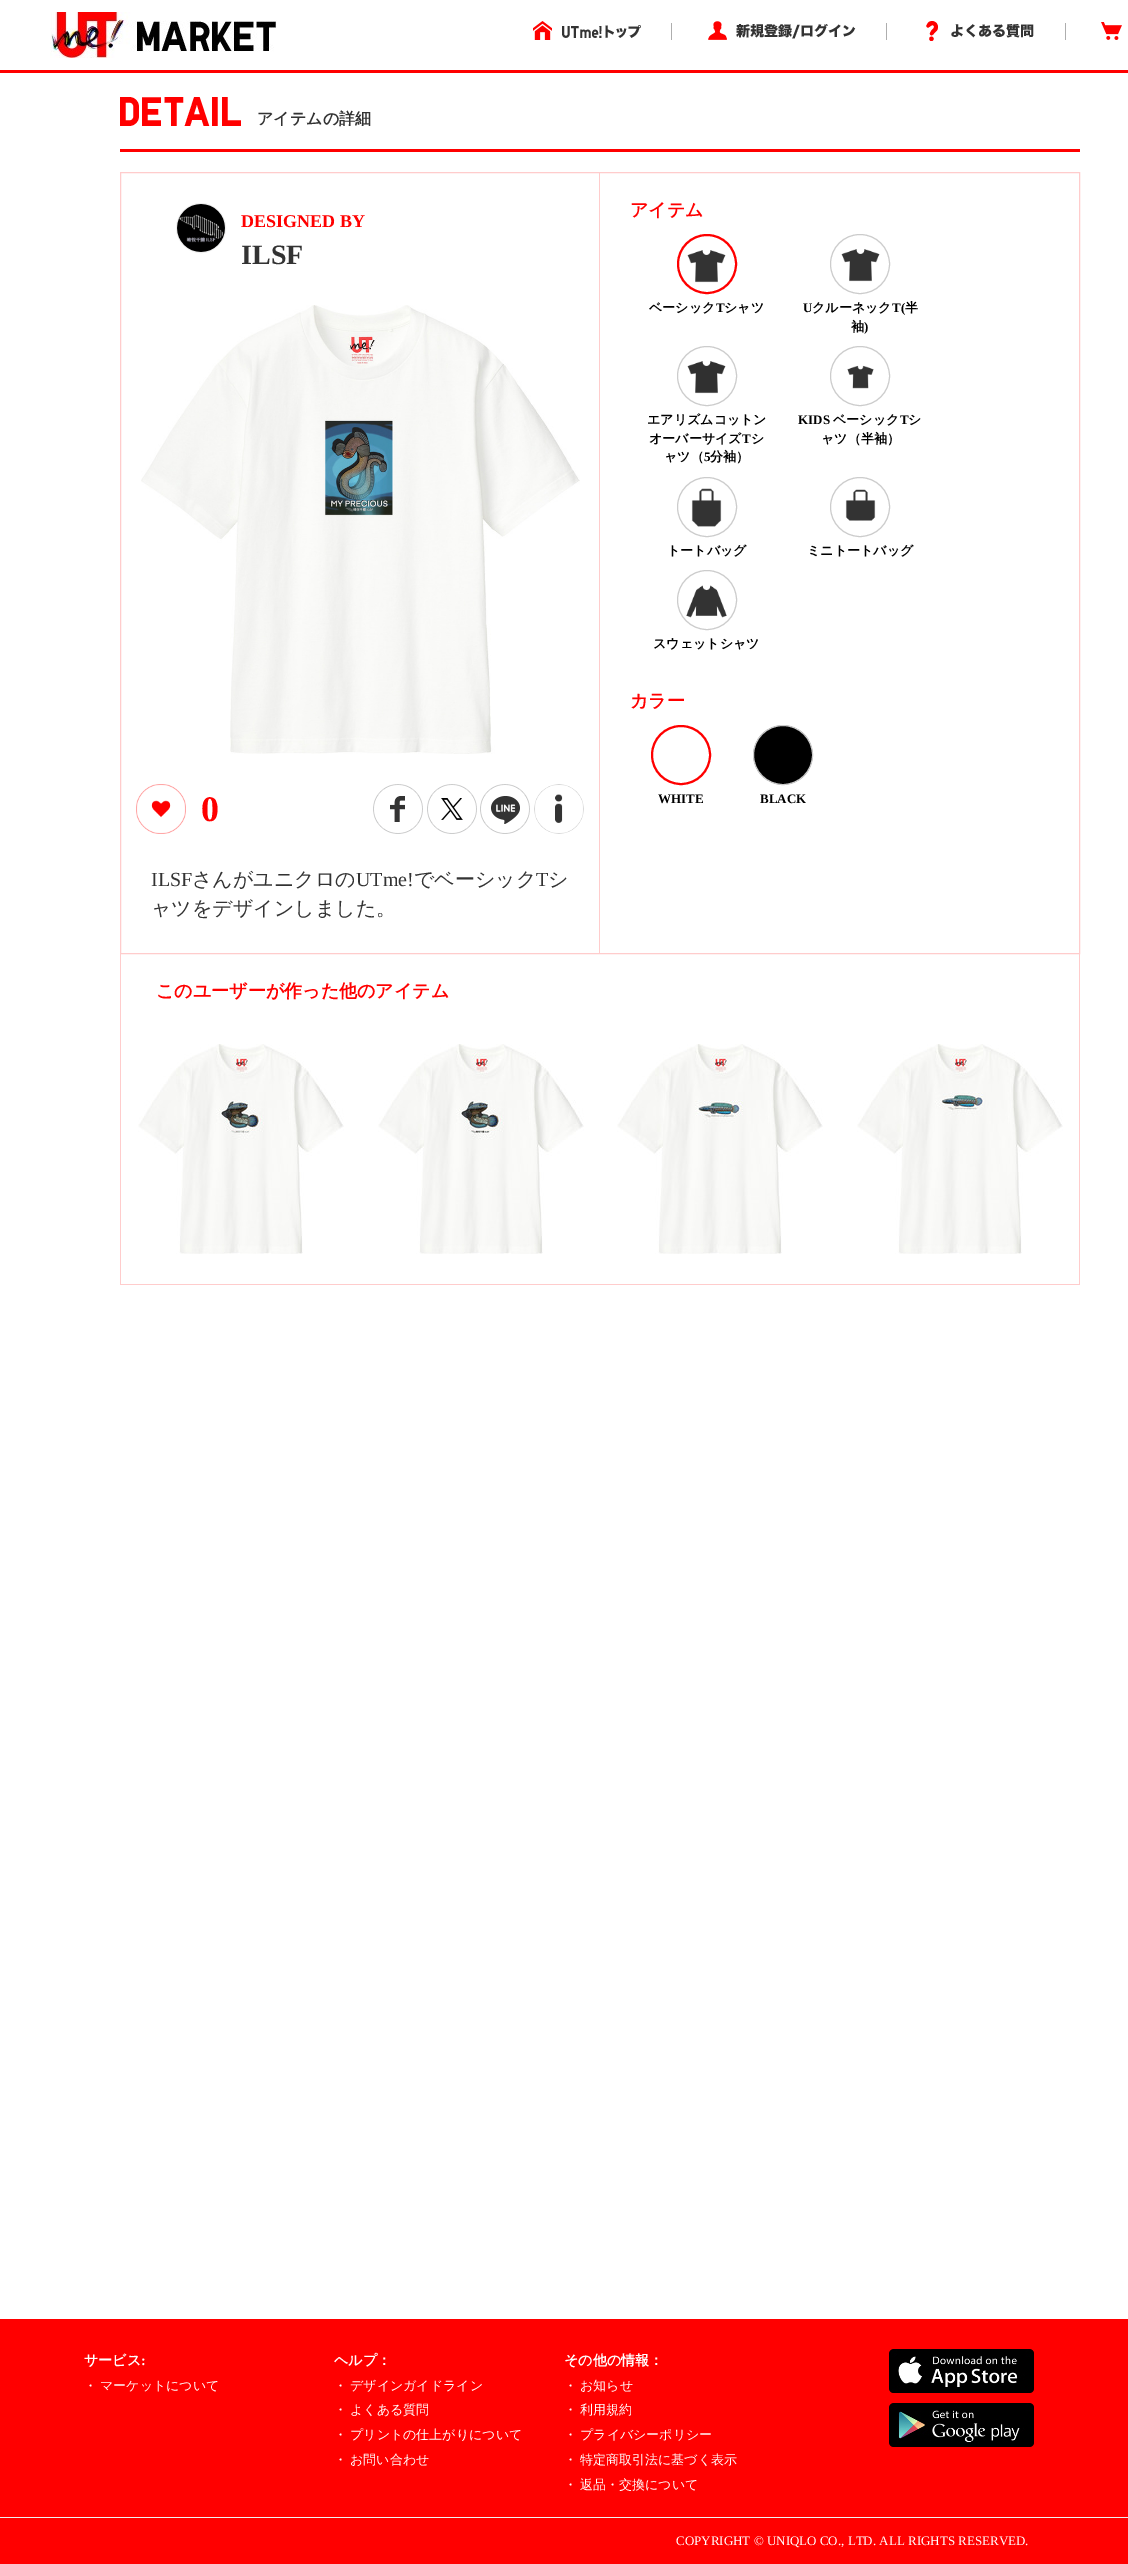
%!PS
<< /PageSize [1128 2564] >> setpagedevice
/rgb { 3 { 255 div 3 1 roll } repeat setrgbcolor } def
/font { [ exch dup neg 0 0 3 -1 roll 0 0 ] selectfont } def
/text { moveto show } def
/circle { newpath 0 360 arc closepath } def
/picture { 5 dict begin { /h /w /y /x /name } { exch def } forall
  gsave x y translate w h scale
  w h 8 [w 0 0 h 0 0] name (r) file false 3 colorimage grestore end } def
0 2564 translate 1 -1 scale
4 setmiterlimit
255 255 255 rgb
0 0 1128 2564 rectfill
(img_01.rgb) 50 12 227 46 picture
(img_02.rgb) 533 21 19 19 picture
(img_03.rgb) 562 25 79 13 picture
174 174 174 rgb
671 23 1 17 rectfill
(img_04.rgb) 708 21 19 19 picture
(img_05.rgb) 736 24 120 15 picture
886 23 1 17 rectfill
(img_06.rgb) 926 21 12 20 picture
(img_07.rgb) 951 24 83 14 picture
1065 23 1 17 rectfill
(img_08.rgb) 1101 22 21 18 picture
255 0 0 rgb
0 70 1128 3 rectfill
(img_09.rgb) 120 97 121 29 picture
120 149 960 3 rectfill
255 204 204 rgb
120.5 172.5 959 781 rectstroke
599 173 1 780 rectfill
239 239 239 rgb
201 228 24.5 circle stroke
(img_10.rgb) 177 204 48 48 picture
(img_11.rgb) 141 305 439 449 picture
(img_12.rgb) 136 784 50 50 picture
(img_13.rgb) 373 784 50 50 picture
(img_14.rgb) 427 784 50 50 picture
(img_15.rgb) 480 784 50 50 picture
(img_16.rgb) 534 784 50 50 picture
255 0 0 rgb
2 setlinewidth
707 264 29 circle stroke
(img_17.rgb) 687 250 39 33 picture
204 204 204 rgb
1 setlinewidth
860 264 29.5 circle stroke
(img_17.rgb) 841 249 39 33 picture
707 376 29.5 circle stroke
(img_18.rgb) 687 361 39 33 picture
860 376 29.5 circle stroke
(img_19.rgb) 847 365 27 24 picture
707 507 29.5 circle stroke
(img_20.rgb) 691 488 31 39 picture
860 507 29.5 circle stroke
(img_21.rgb) 845 489 31 32 picture
707 600 29.5 circle stroke
(img_22.rgb) 686 585 41 33 picture
255 0 0 rgb
2 setlinewidth
681 755 29 circle stroke
0 0 0 rgb
783 755 29.5 circle gsave fill grestore
204 204 204 rgb
1 setlinewidth
stroke
255 204 204 rgb
1079 954 1 331 rectfill
120 1284 960 1 rectfill
120 954 1 331 rectfill
(img_23.rgb) 138 1044 206 210 picture
(img_24.rgb) 378 1044 206 210 picture
(img_25.rgb) 617 1044 206 210 picture
(img_26.rgb) 857 1044 206 210 picture
255 0 0 rgb
0 2319 1128 245 rectfill
(img_27.rgb) 889 2349 145 44 picture
(img_28.rgb) 889 2403 145 44 picture
238 238 238 rgb
0 2517 1128 1 rectfill
/WenQuanYiZenHei-Bold 16 font
51 51 51 rgb
(アイテムの詳細) 257 124 text
/LiberationSerif-Bold 18 font
255 0 0 rgb
(DESIGNED BY) 241 227 text
/LiberationSerif-Bold 28 font
51 51 51 rgb
(ILSF) 241 264 text
/LiberationSerif-Bold 36 font
255 0 0 rgb
(0) 201 821 text
/LiberationSerif-Regular 20 font
51 51 51 rgb
(ILSF) 151 886 text
/WenQuanYiZenHei-Medium 20 font
(さんがユニクロの) 192 886 text
/LiberationSerif-Regular 20 font
(UTme!) 356 886 text
/WenQuanYiZenHei-Medium 20 font
(でベーシック) 414 886 text
/LiberationSerif-Regular 20 font
(T) 536 886 text
/WenQuanYiZenHei-Medium 20 font
(シ) 548 886 text
(ャツをデザインしました。) 151 915 text
/WenQuanYiZenHei-Bold 18 font
255 0 0 rgb
(アイテム) 630 216 text
/WenQuanYiZenHei-Bold 13 font
0 0 0 rgb
(ベーシック) 649 312 text
/LiberationSerif-Bold 13 font
(T) 716 312 text
/WenQuanYiZenHei-Bold 13 font
(シャツ) 724 312 text
/LiberationSerif-Bold 13 font
(U) 803 312 text
/WenQuanYiZenHei-Bold 13 font
(クルーネック) 812 312 text
/LiberationSerif-Bold 13 font
(T\() 892 312 text
/WenQuanYiZenHei-Bold 13 font
(半) 905 312 text
(袖) 851 331 text
/LiberationSerif-Bold 13 font
(\)) 864 331 text
/WenQuanYiZenHei-Bold 13 font
(エアリズムコットン) 647 424 text
(オーバーサイズ) 649 443 text
/LiberationSerif-Bold 13 font
(T) 742 443 text
/WenQuanYiZenHei-Bold 13 font
(シ) 751 443 text
(ャツ（) 664 461 text
/LiberationSerif-Bold 13 font
(5) 704 461 text
/WenQuanYiZenHei-Bold 13 font
(分袖）) 710 461 text
/LiberationSerif-Bold 13 font
(KIDS) 798 424 text
/WenQuanYiZenHei-Bold 13 font
(ベーシック) 833 424 text
/LiberationSerif-Bold 13 font
(T) 900 424 text
/WenQuanYiZenHei-Bold 13 font
(シ) 908 424 text
(ャツ（半袖）) 821 443 text
(トートバッグ) 667 555 text
(ミニトートバッグ) 807 555 text
(スウェットシャツ) 653 648 text
/WenQuanYiZenHei-Bold 18 font
255 0 0 rgb
(カラー) 630 707 text
/LiberationSerif-Bold 13 font
0 0 0 rgb
(WHITE) 658 803 text
(BLACK) 760 803 text
/WenQuanYiZenHei-Bold 18 font
255 0 0 rgb
(このユーザーが作った他のアイテム) 156 997 text
/WenQuanYiZenHei-Bold 14 font
255 255 255 rgb
(サービス) 84 2365 text
/LiberationSerif-Bold 14 font
(:) 141 2365 text
/WenQuanYiZenHei-Medium 13 font
84 2390 moveto -1 0 32 (・ マーケットについて) widthshow
/WenQuanYiZenHei-Bold 14 font
(ヘルプ：) 334 2365 text
/WenQuanYiZenHei-Medium 13 font
334 2390 moveto -1 0 32 (・ デザインガイドライン) widthshow
334 2414 moveto -1 0 32 (・ よくある質問) widthshow
334 2439 moveto -1 0 32 (・ プリントの仕上がりについて) widthshow
334 2464 moveto -1 0 32 (・ お問い合わせ) widthshow
/WenQuanYiZenHei-Bold 14 font
(その他の情報：) 564 2365 text
/WenQuanYiZenHei-Medium 13 font
564 2390 moveto -1 0 32 (・ お知らせ) widthshow
564 2414 moveto -1 0 32 (・ 利用規約) widthshow
564 2439 moveto -1 0 32 (・ プライバシーポリシー) widthshow
564 2464 moveto -1 0 32 (・ 特定商取引法に基づく表示) widthshow
564 2489 moveto -1 0 32 (・ 返品・交換について) widthshow
/LiberationSerif-Regular 13 font
(COPYRIGHT © UNIQLO CO., LTD. ALL RIGHTS RESERVED.) 676 2545 text
showpage
